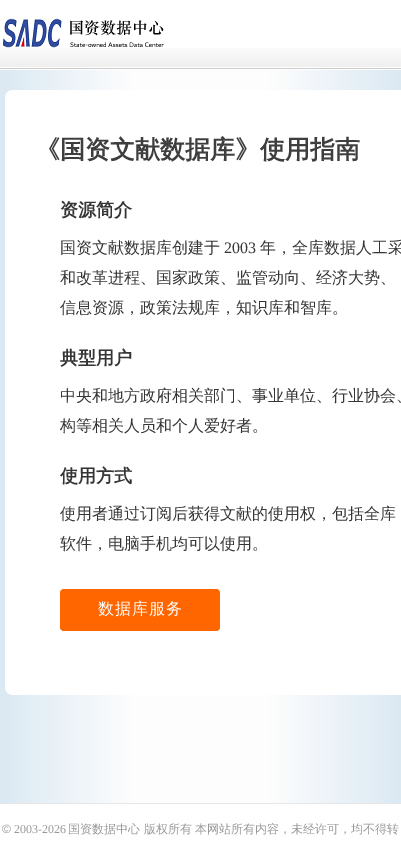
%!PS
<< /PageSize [401 854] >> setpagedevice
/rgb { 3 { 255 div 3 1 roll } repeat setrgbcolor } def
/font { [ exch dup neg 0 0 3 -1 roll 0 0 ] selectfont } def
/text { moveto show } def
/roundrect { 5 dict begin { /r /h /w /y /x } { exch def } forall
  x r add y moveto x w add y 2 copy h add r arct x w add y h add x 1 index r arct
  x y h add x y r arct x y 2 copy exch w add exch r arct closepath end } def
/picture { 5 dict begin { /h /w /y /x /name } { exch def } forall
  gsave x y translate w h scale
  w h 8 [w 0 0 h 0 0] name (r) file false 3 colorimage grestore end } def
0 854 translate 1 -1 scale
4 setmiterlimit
255 255 255 rgb
0 0 401 854 rectfill
gsave 0 70 moveto 401 0 rlineto 0 733 rlineto -401 0 rlineto closepath clip newpath
<< /ShadingType 2 /ColorSpace /DeviceRGB /Coords [401 393 0 393] /Extend [true true] /Function << /FunctionType 3 /Domain [0 1] /Functions [<< /FunctionType 2 /Domain [0 1] /C0 [0.859 0.914 0.953] /C1 [0.992 0.992 0.992] /N 1 >> << /FunctionType 2 /Domain [0 1] /C0 [0.992 0.992 0.992] /C1 [0.992 0.992 0.992] /N 1 >> << /FunctionType 2 /Domain [0 1] /C0 [0.992 0.992 0.992] /C1 [0.859 0.914 0.953] /N 1 >>] /Bounds [0.33 0.67] /Encode [0 1 0 1 0 1] >> >> shfill grestore
(img_01.rgb) 0 48 401 21 picture
(img_02.rgb) 3 18 161 30 picture
5 90 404 605 8 roundrect fill
255 102 0 rgb
60 589 160 42 4 roundrect fill
230 230 230 rgb
0 803 401 1 rectfill
/WenQuanYiZenHei-Bold 25 font
62 62 62 rgb
(《国资文献数据库》使用指南) 35 158 text
/WenQuanYiZenHei-Bold 18 font
53 53 53 rgb
(资源简介) 60 216 text
/WenQuanYiZenHei-Medium 16 font
(国资文献数据库创建于) 60 253 text
/LiberationSerif-Regular 16 font
(2003) 224 253 text
/WenQuanYiZenHei-Medium 16 font
(年，全库数据人工采) 260 253 text
(和改革进程、国家政策、监管动向、经济大势、) 60 283 text
(信息资源，政策法规库，知识库和智库。) 60 313 text
/WenQuanYiZenHei-Bold 18 font
(典型用户) 60 364 text
/WenQuanYiZenHei-Medium 16 font
(中央和地方政府相关部门、事业单位、行业协会、) 60 401 text
(构等相关人员和个人爱好者。) 60 431 text
/WenQuanYiZenHei-Bold 18 font
(使用方式) 60 482 text
/WenQuanYiZenHei-Medium 16 font
(使用者通过订阅后获得文献的使用权，包括全库) 60 519 text
(软件，电脑手机均可以使用。) 60 549 text
255 255 255 rgb
98 614 moveto 1 0 (数据库服务) ashow
/LiberationSans-Regular 12 font
152 152 152 rgb
(©) 2 833 text
/LiberationSerif-Regular 12 font
(2003-2026) 14 833 text
/WenQuanYiZenHei-Medium 12 font
(国资数据中心 版权所有 本网站所有内容，未经许可，均不得转) 68 833 text
showpage
